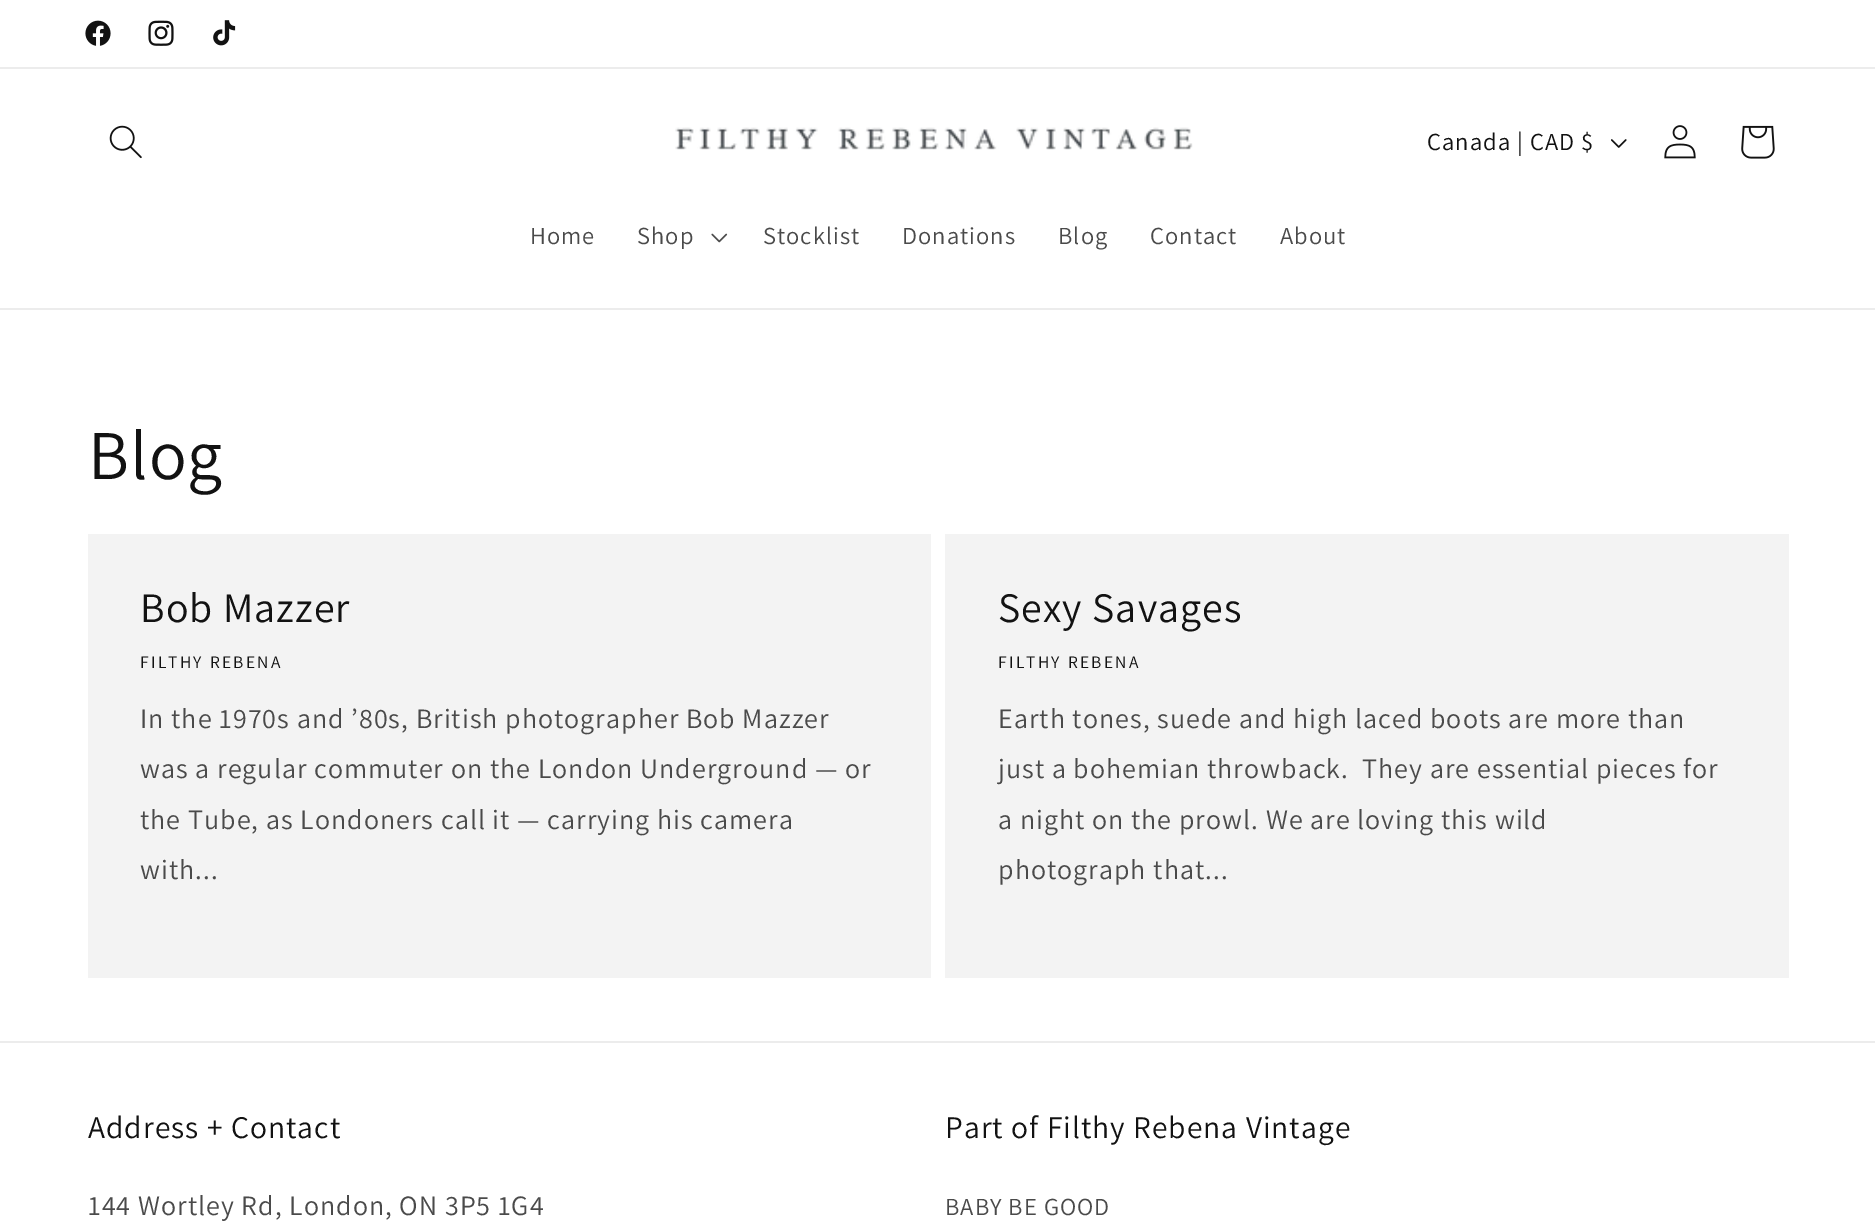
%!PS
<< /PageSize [1875 1230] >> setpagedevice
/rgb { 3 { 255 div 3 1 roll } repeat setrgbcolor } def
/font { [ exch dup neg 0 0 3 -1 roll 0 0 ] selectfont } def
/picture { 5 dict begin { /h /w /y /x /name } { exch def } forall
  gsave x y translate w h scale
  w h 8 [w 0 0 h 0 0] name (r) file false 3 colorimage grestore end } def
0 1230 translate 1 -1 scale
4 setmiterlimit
255 255 255 rgb
0 0 1875 1230 rectfill
236 236 236 rgb
0 67 1875 2 rectfill
(img_01.rgb) 85 20 26 26 picture
(img_02.rgb) 148 20 26 26 picture
(img_03.rgb) 213 20 23 26 picture
0 308 1875 2 rectfill
(img_04.rgb) 109 125 33 34 picture
(img_05.rgb) 675 127 518 23 picture
(img_06.rgb) 1611 139 16 9 picture
(img_07.rgb) 1664 125 32 34 picture
(img_08.rgb) 1741 125 34 34 picture
(img_09.rgb) 711 233 17 10 picture
243 243 243 rgb
88 534 843 444 rectfill
945 534 844 444 rectfill
236 236 236 rgb
0 1041 1875 2 rectfill
/Assistant-Regular 24.5 font
18 18 18 rgb
1427 150 moveto 1.05 0 (Canada | CAD $) ashow
74 74 74 rgb
530 244 moveto 1.05 0 (Home) ashow
637 244 moveto 1.05 0 (Shop) ashow
763 244 moveto 1.05 0 (Stocklist) ashow
902 244 moveto 1.05 0 (Donations) ashow
1058 244 moveto 1.05 0 (Blog) ashow
1150 244 moveto 1.05 0 (Contact) ashow
1280 244 moveto 1.05 0 (About) ashow
/Assistant-Regular 70 font
18 18 18 rgb
88 479 moveto 1.05 0 (Blog) ashow
/Assistant-Regular 42 font
140 622 moveto 1.05 0 (Bob Mazzer) ashow
/Assistant-Regular 17.5 font
140 668 moveto 2.25 0 (FILTHY REBENA) ashow
/Assistant-Regular 28 font
74 74 74 rgb
140 728 moveto 1.05 0 (In the 1970s and ’80s, British photographer Bob Mazzer) ashow
140 778 moveto 1.05 0 (was a regular commuter on the London Underground — or) ashow
140 829 moveto 1.05 0 (the Tube, as Londoners call it — carrying his camera) ashow
140 879 moveto 1.05 0 (with...) ashow
/Assistant-Regular 42 font
18 18 18 rgb
998 622 moveto 1.05 0 (Sexy Savages) ashow
/Assistant-Regular 17.5 font
998 668 moveto 2.25 0 (FILTHY REBENA) ashow
/Assistant-Regular 28 font
74 74 74 rgb
998 728 moveto 1.05 0 (Earth tones, suede and high laced boots are more than) ashow
998 778 moveto 1.05 0 (just a bohemian throwback.  They are essential pieces for) ashow
998 829 moveto 1.05 0 (a night on the prowl. We are loving this wild) ashow
998 879 moveto 1.05 0 (photograph that...) ashow
/Assistant-Regular 31.5 font
18 18 18 rgb
88 1138 moveto 1.05 0 (Address + Contact) ashow
/Assistant-Regular 28 font
74 74 74 rgb
88 1215 moveto 1.05 0 (144 Wortley Rd, London, ON 3P5 1G4) ashow
/Assistant-Regular 31.5 font
18 18 18 rgb
945 1138 moveto 1.05 0 (Part of Filthy Rebena Vintage) ashow
/Assistant-Regular 24.5 font
74 74 74 rgb
945 1215 moveto 1.05 0 (BABY BE GOOD) ashow
showpage
